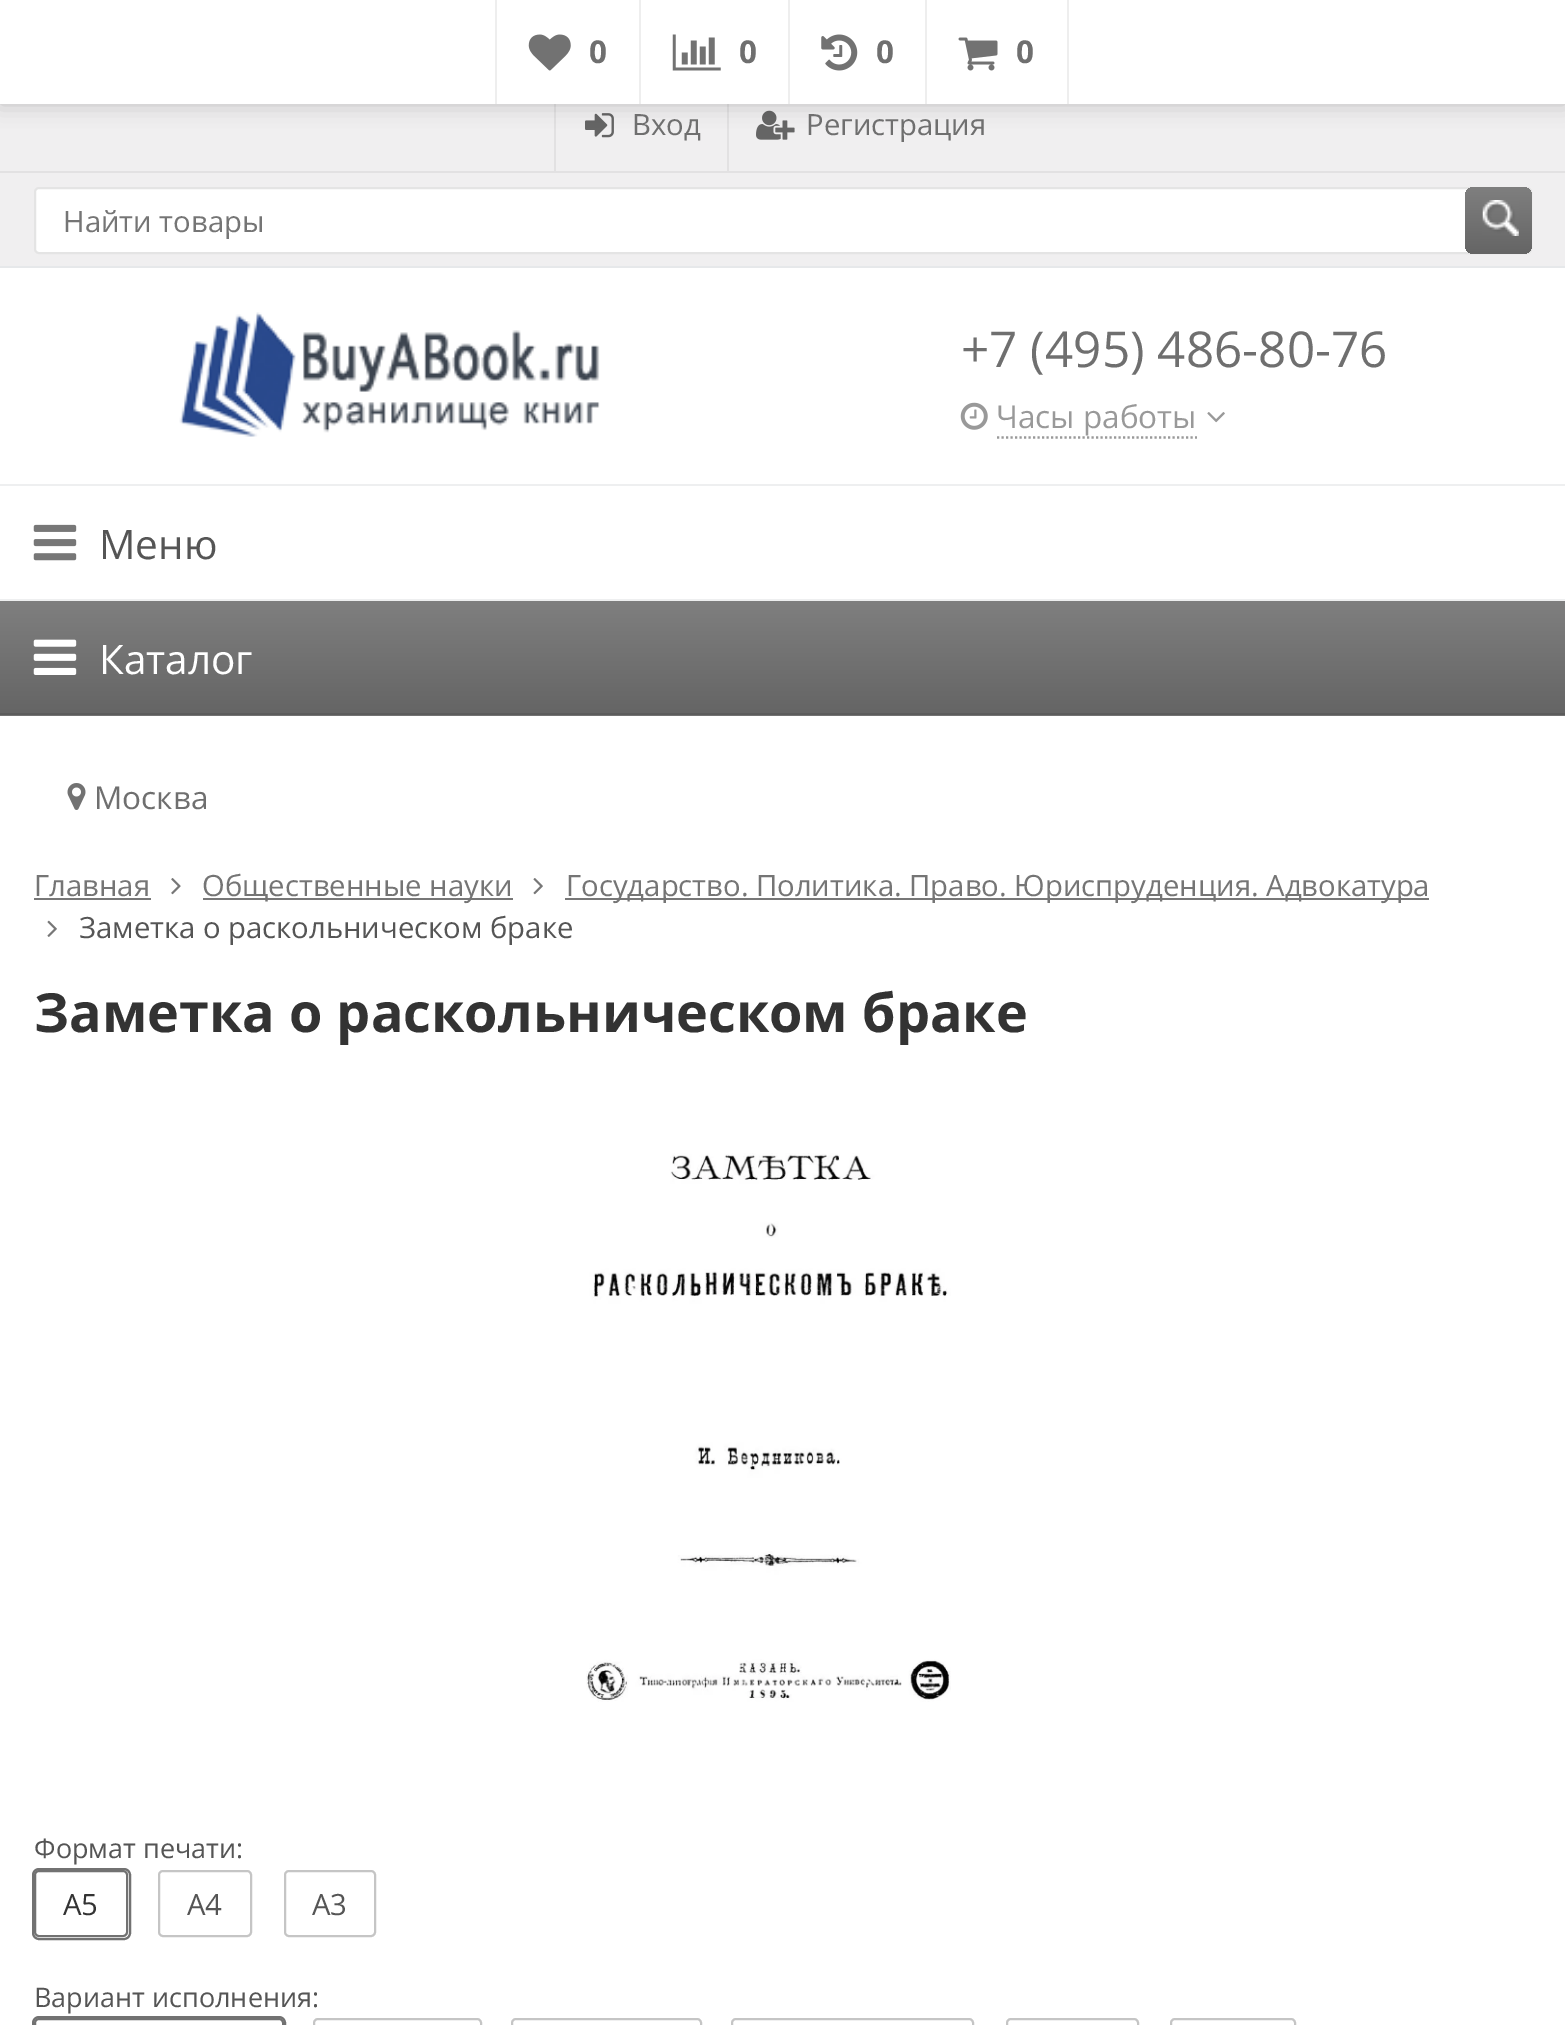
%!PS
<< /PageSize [1565 2025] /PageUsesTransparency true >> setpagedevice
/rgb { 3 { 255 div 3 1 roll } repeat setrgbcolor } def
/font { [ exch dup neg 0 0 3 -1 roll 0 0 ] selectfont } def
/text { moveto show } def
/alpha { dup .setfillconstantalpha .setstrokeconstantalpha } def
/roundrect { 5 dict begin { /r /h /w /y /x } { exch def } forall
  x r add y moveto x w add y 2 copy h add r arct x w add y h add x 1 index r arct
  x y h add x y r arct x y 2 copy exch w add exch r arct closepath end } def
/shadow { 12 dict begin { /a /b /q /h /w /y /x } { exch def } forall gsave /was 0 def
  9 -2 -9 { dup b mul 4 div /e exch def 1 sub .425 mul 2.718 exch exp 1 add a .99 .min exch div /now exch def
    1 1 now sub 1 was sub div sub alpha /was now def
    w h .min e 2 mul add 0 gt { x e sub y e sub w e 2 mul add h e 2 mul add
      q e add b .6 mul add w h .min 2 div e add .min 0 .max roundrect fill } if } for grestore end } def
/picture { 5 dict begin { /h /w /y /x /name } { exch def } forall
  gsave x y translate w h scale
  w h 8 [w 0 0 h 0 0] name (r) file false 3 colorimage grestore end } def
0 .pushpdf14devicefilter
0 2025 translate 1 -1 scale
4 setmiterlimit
255 255 255 rgb
0 0 1565 2025 rectfill
240 239 240 rgb
0 104 1565 162 rectfill
226 225 226 rgb
554 104 2 67 rectfill
(img_05.rgb) 585 113 29 25 picture
727 104 2 67 rectfill
(img_06.rgb) 756 110 39 30 picture
0 0 0 rgb
0 0 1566 104 0 11 0.2 shadow
255 255 255 rgb
0 0 1565 104 rectfill
238 238 238 rgb
495 0 2 104 rectfill
(img_01.rgb) 528 34 43 37 picture
639 0 2 104 rectfill
(img_02.rgb) 672 34 49 37 picture
788 0 2 104 rectfill
(img_03.rgb) 821 34 37 37 picture
1067 0 2 104 rectfill
925 0 2 104 rectfill
(img_04.rgb) 958 37 40 34 picture
230 232 234 rgb
0 266 1565 2 rectfill
226 225 226 rgb
0 171 1565 2 rectfill
255 255 255 rgb
35 188 1496 65 4 roundrect gsave fill grestore
228 228 228 rgb
2 setlinewidth
stroke
gsave 1465 187 67 67 9 roundrect clip newpath
<< /ShadingType 2 /ColorSpace /DeviceRGB /Coords [1499 187 1499 254] /Extend [true true] /Function << /FunctionType 2 /Domain [0 1] /C0 [0.498 0.498 0.498] /C1 [0.396 0.396 0.396] /N 1 >> >> shfill grestore
(img_07.rgb) 1482 200 37 36 picture
(img_08.rgb) 179 312 421 125 picture
(img_09.rgb) 960 402 28 28 picture
153 153 153 rgb
2.2 setlinewidth
[2.25 2.25] 0 setdash
997 437.5 moveto 200 0 rlineto stroke
(img_10.rgb) 1207 412 18 11 picture
238 239 240 rgb
0 484 1565 2 rectfill
0 599 1565 2 rectfill
(img_11.rgb) 33 524 44 37 picture
114 114 114 rgb
0 715 1565 1 rectfill
gsave 0 601 moveto 1565 0 rlineto 0 112 rlineto -1565 0 rlineto closepath clip newpath
<< /ShadingType 2 /ColorSpace /DeviceRGB /Coords [783 601 783 713] /Extend [true true] /Function << /FunctionType 2 /Domain [0 1] /C0 [0.498 0.498 0.498] /C1 [0.396 0.396 0.396] /N 1 >> >> shfill grestore
91 91 91 rgb
0 713 1565 2 rectfill
(img_12.rgb) 33 639 44 36 picture
(img_13.rgb) 67 783 19 27 picture
119 119 119 rgb
34 898 117 2 rectfill
(img_14.rgb) 171 878 10 17 picture
203 898 310 2 rectfill
(img_15.rgb) 533 878 10 17 picture
565 898 864 2 rectfill
(img_16.rgb) 47 920 10 17 picture
(img_17.rgb) 586 1153 365 549 picture
114 114 114 rgb
2 setlinewidth
[] 0 setdash
33 1869 97 70 6 roundrect stroke
255 255 255 rgb
35 1871 92 65 4 roundrect gsave fill grestore
114 114 114 rgb
stroke
197 197 197 rgb
159 1871 92 65 4 roundrect stroke
285 1871 90 65 4 roundrect stroke
114 114 114 rgb
33 2017 252 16 6 roundrect stroke
255 255 255 rgb
35 2019 248 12 4 roundrect gsave fill grestore
114 114 114 rgb
stroke
197 197 197 rgb
314 2019 167 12 4 roundrect stroke
512 2019 189 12 4 roundrect stroke
732 2019 241 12 4 roundrect stroke
1007 2019 131 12 4 roundrect stroke
1171 2019 124 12 4 roundrect stroke
/OpenSans-Bold 31.5 font
111 111 111 rgb
(0) 589 63 text
(0) 739 63 text
(0) 876 63 text
(0) 1016 63 text
/OpenSans-Regular 29.25 font
(Вход) 632 135 text
(Регистрация) 806 135 text
117 117 117 rgb
(Найти товары) 63 232 text
/OpenSans-Regular 49.5 font
111 111 111 rgb
(+7 \(495\) 486-80-76) 961 367 text
/OpenSans-Regular 31.5 font
153 153 153 rgb
(Часы работы) 996 428 text
/OpenSans-Regular 40.5 font
85 85 85 rgb
(Меню) 99 559 text
255 255 255 rgb
(Каталог) 99 674 text
/OpenSans-Regular 31.5 font
111 111 111 rgb
(Москва) 94 809 text
/OpenSans-Regular 29.25 font
117 117 117 rgb
(Главная) 34 896 text
(Общественные науки) 202 896 text
(Государство. Политика. Право. Юриспруденция. Адвокатура) 566 896 text
85 85 85 rgb
(Заметка о раскольническом браке) 79 938 text
/OpenSans-Bold 54 font
51 51 51 rgb
(Заметка о раскольническом браке) 34 1032 text
/OpenSans-Regular 27 font
85 85 85 rgb
(Формат печати:) 34 1858 text
/OpenSans-Regular 29.25 font
51 51 51 rgb
(A5) 63 1915 text
85 85 85 rgb
(A4) 187 1915 text
(A3) 312 1915 text
/OpenSans-Regular 27 font
(Вариант исполнения:) 34 2007 text
.poppdf14devicefilter showpage
